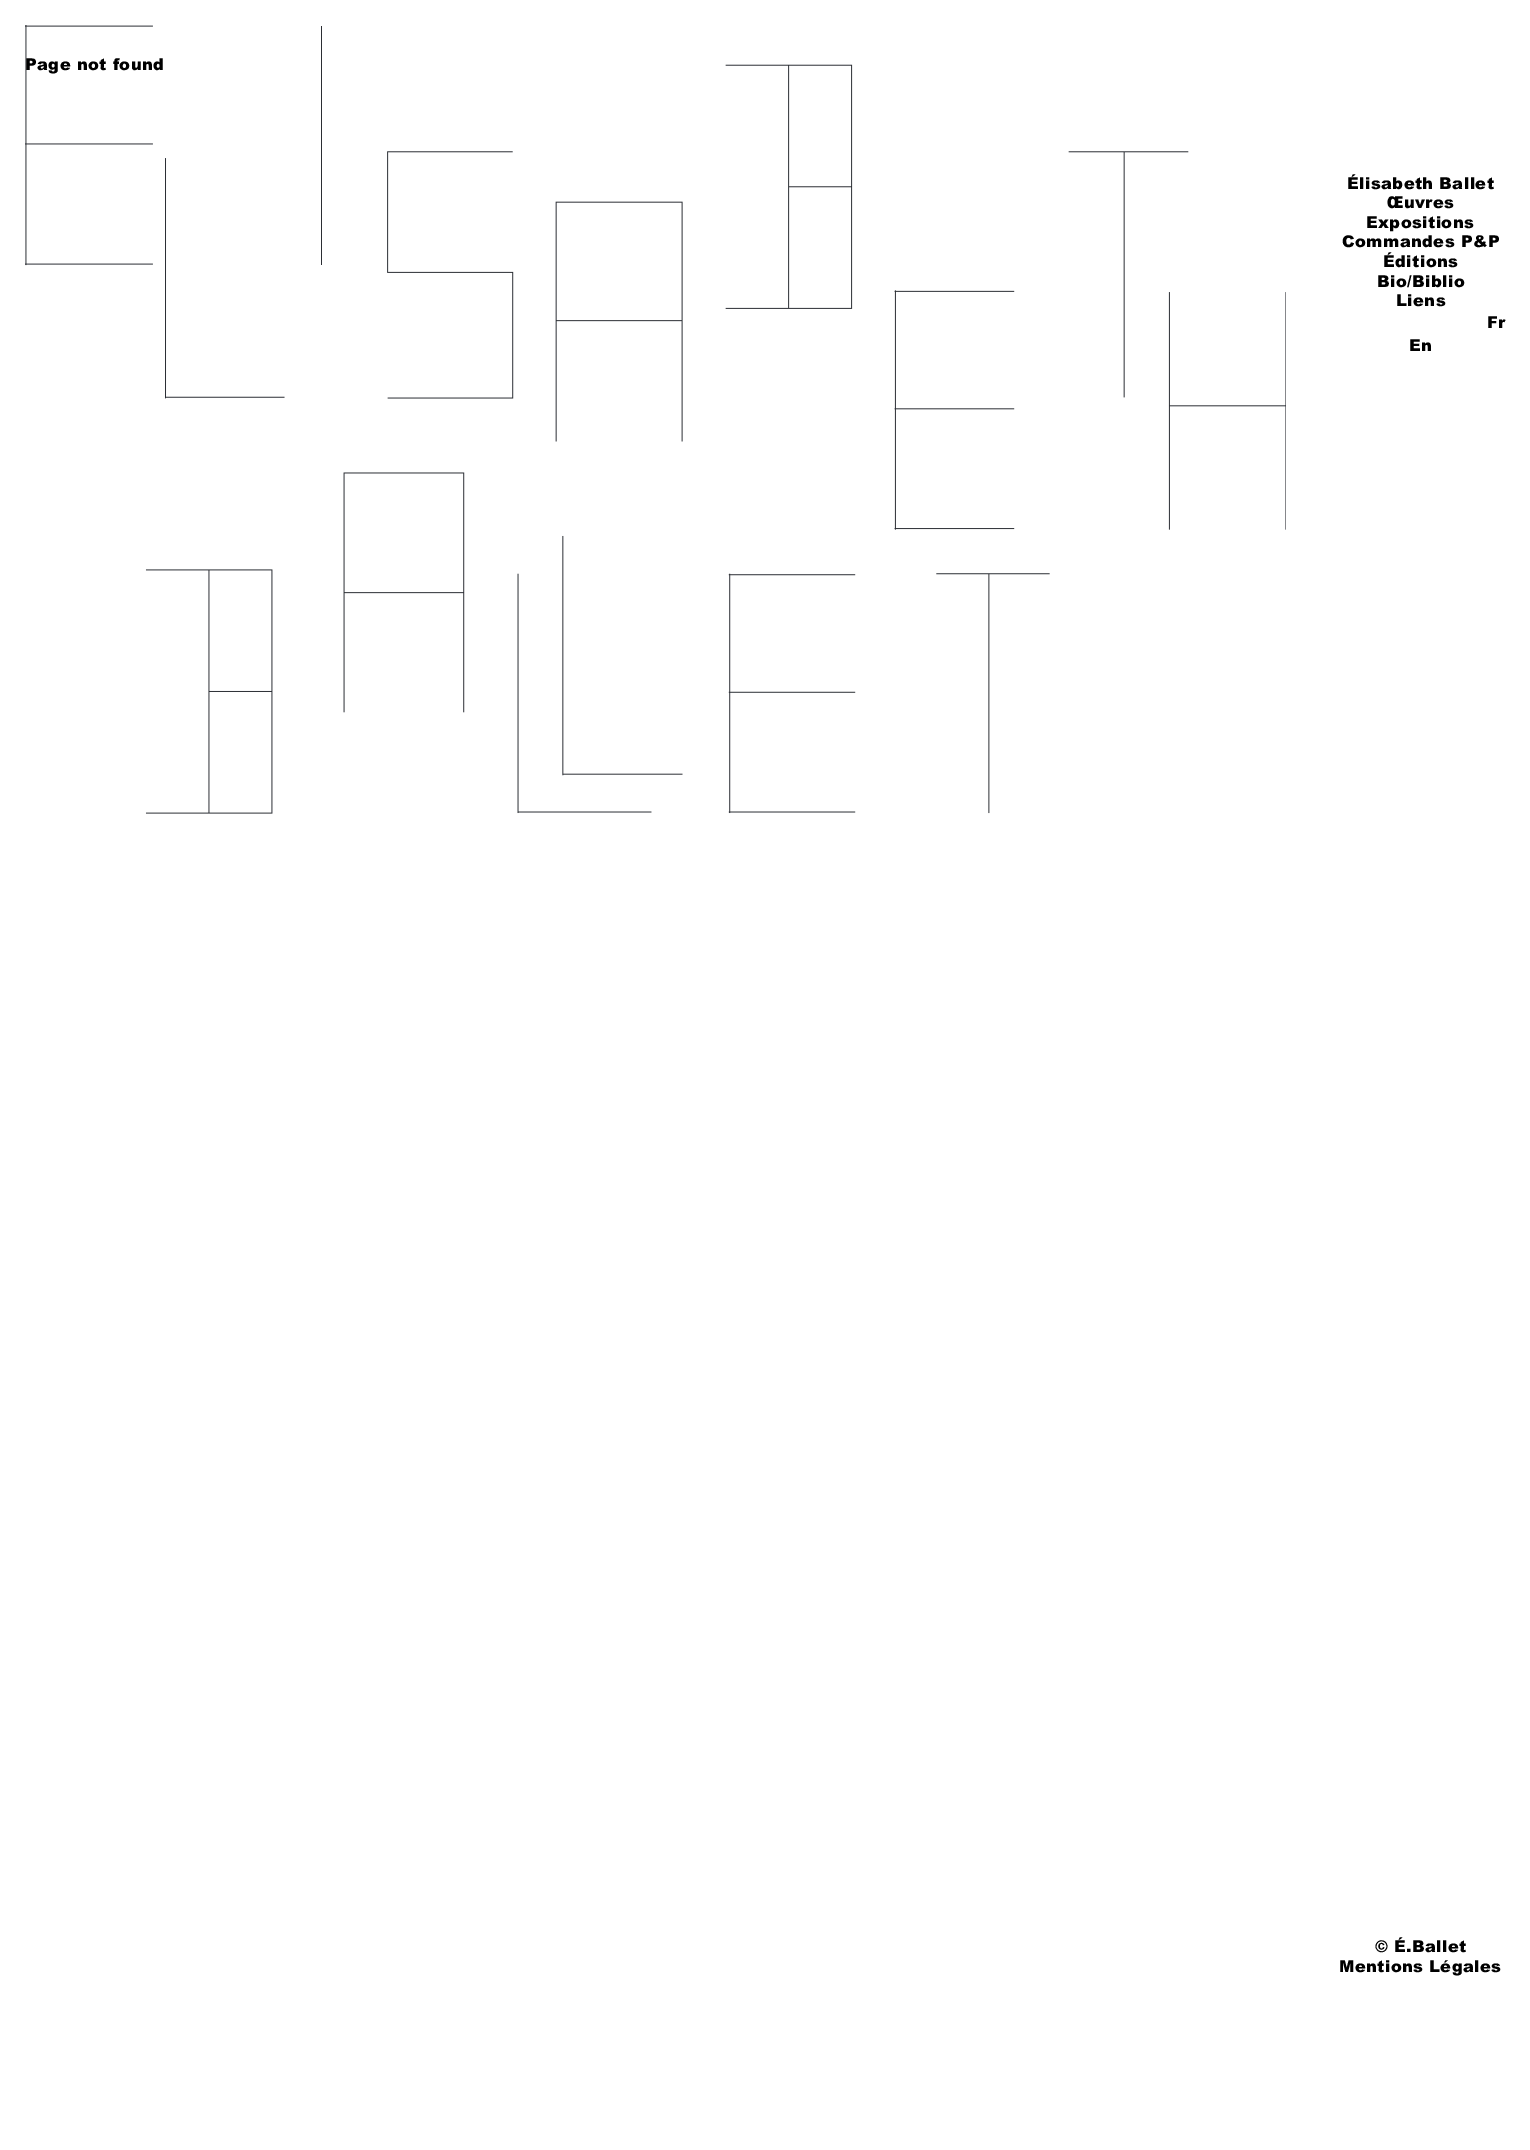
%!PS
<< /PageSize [1530 2150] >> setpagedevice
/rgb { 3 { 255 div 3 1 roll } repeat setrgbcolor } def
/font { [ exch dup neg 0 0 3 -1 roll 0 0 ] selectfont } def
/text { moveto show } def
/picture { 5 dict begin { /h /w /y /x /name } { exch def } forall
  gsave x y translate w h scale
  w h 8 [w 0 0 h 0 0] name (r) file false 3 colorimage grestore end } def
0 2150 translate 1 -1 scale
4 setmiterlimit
255 255 255 rgb
0 0 1530 2150 rectfill
(img_01.rgb) 25 25 1261 789 picture
/Arial-Black 16.25 font
0 0 0 rgb
25 70 moveto 0.4 0 (Page not found) ashow
1347 189 moveto 0.4 0 (Élisabeth Ballet) ashow
1387 208 moveto 0.4 0 (Œuvres) ashow
1366 228 moveto 0.4 0 (Expositions) ashow
1342 247 moveto 0.4 0 (Commandes P&P) ashow
1383 267 moveto 0.4 0 (Éditions) ashow
1377 287 moveto 0.4 0 (Bio/Biblio) ashow
1396 306 moveto 0.4 0 (Liens) ashow
(Fr) 1487 328 text
(En) 1409 351 text
1375 1952 moveto 0.4 0 (© É.Ballet) ashow
1339 1972 moveto 0.4 0 (Mentions Légales) ashow
showpage
